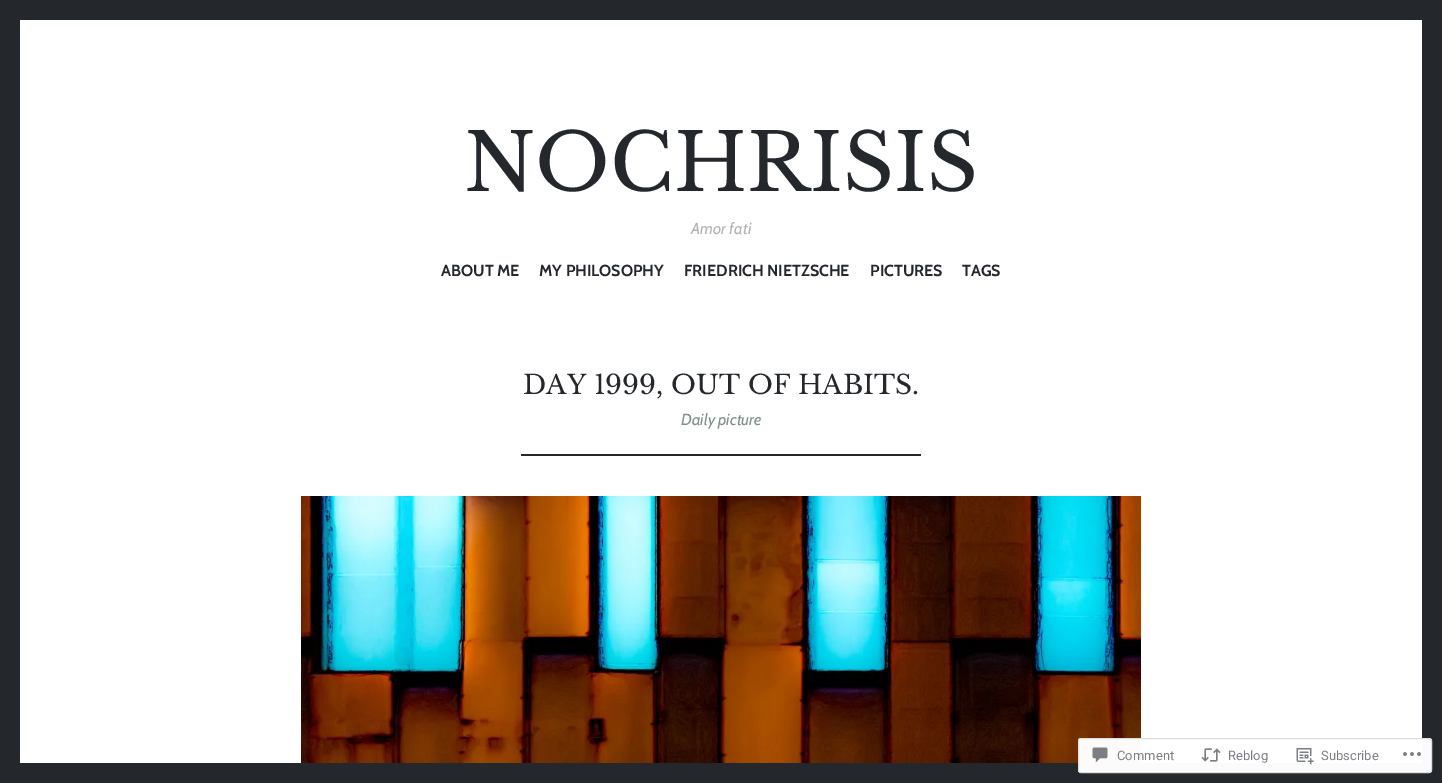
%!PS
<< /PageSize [1442 783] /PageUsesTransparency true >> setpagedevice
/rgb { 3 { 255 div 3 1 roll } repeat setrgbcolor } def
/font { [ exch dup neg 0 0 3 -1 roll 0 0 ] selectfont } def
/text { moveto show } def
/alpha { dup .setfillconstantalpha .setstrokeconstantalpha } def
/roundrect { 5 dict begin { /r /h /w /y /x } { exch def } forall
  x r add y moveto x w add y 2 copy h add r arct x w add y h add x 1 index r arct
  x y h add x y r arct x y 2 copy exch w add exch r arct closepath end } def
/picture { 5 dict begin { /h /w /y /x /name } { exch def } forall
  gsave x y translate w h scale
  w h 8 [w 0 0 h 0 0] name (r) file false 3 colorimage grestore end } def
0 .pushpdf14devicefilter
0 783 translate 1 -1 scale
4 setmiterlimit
36 40 45 rgb
0 0 1442 783 rectfill
255 255 255 rgb
20 20 1402 743 rectfill
36 40 45 rgb
521 454 400 2 rectfill
(img_01.rgb) 301 496 840 267 picture
0.98 alpha
255 255 255 rgb
1078 738 354 35 3 roundrect fill
220 220 222 rgb
1078.5 738.5 353 34 2.5 roundrect stroke
1 alpha
(img_02.rgb) 1092 747 16 16 picture
(img_03.rgb) 1201 748 20 14 picture
(img_04.rgb) 1296 748 18 17 picture
(img_05.rgb) 1403 752 18 4 picture
/LibreBaskerville-Regular 79.25 font
36 40 45 rgb
(NOCHRISIS) 464 191 text
/Cabin-Italic 16 font
177 178 179 rgb
(Amor fati) 691 234 text
/Cabin-Bold 16 font
36 40 45 rgb
(ABOUT ME) 441 276 text
(MY PHILOSOPHY) 539 276 text
(FRIEDRICH NIETZSCHE) 684 276 text
(PICTURES) 870 276 text
(TAGS) 962 276 text
/LibreBaskerville-Regular 26.4 font
(DAY 1999, OUT OF HABITS.) 523 394 text
/Cabin-Italic 16 font
127 141 140 rgb
(Daily picture) 681 425 text
/Roboto-Regular 13 font
123 127 132 rgb
(Comment) 1117 760 text
(Reblog) 1228 760 text
(Subscribe) 1321 760 text
.poppdf14devicefilter showpage
